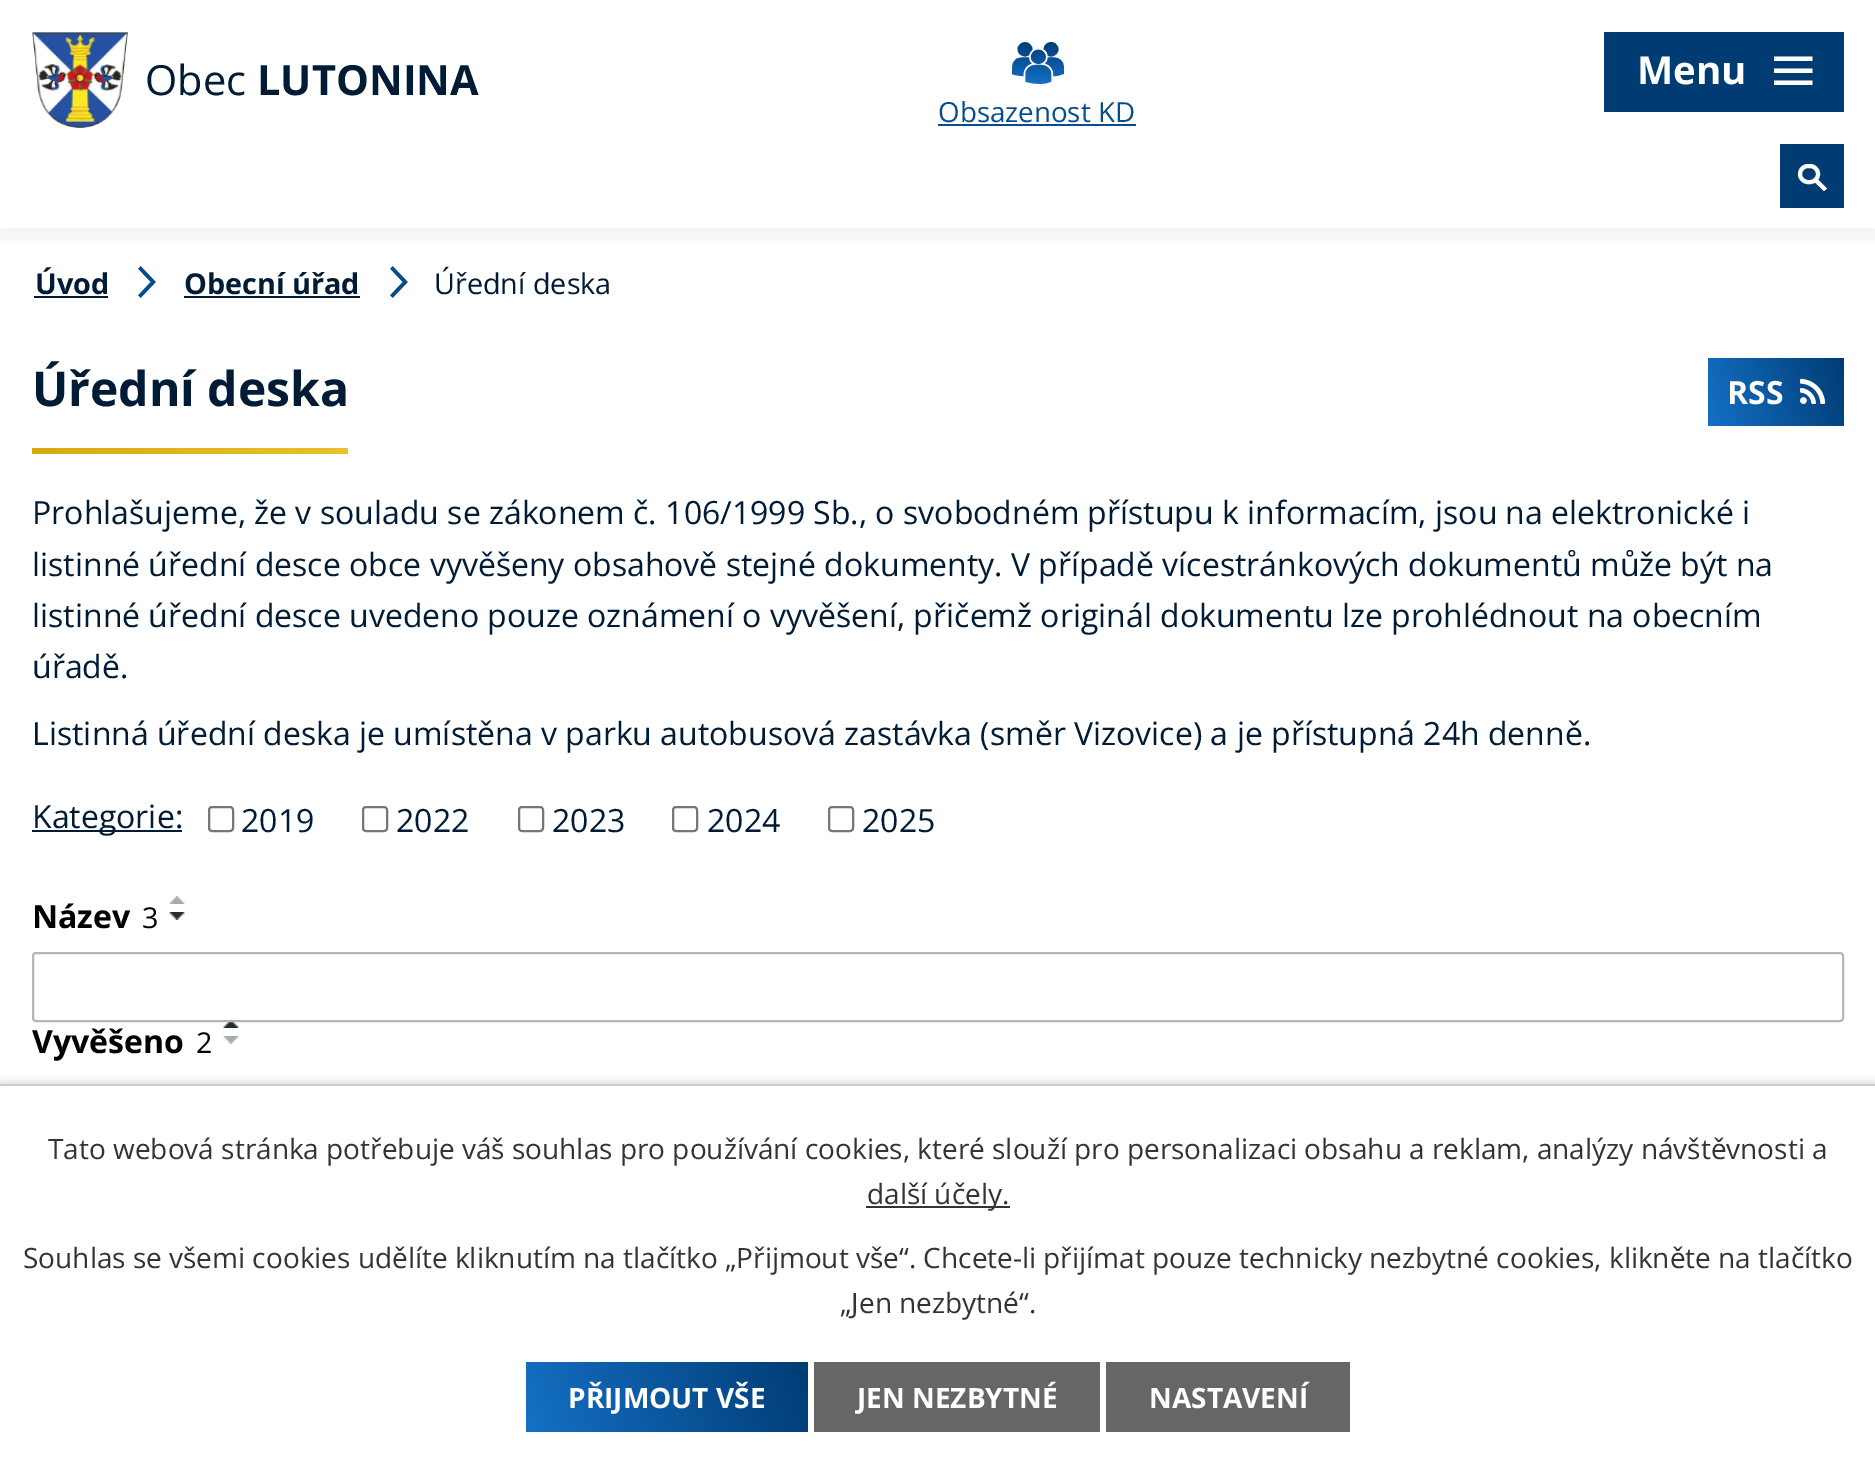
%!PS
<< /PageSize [1875 1468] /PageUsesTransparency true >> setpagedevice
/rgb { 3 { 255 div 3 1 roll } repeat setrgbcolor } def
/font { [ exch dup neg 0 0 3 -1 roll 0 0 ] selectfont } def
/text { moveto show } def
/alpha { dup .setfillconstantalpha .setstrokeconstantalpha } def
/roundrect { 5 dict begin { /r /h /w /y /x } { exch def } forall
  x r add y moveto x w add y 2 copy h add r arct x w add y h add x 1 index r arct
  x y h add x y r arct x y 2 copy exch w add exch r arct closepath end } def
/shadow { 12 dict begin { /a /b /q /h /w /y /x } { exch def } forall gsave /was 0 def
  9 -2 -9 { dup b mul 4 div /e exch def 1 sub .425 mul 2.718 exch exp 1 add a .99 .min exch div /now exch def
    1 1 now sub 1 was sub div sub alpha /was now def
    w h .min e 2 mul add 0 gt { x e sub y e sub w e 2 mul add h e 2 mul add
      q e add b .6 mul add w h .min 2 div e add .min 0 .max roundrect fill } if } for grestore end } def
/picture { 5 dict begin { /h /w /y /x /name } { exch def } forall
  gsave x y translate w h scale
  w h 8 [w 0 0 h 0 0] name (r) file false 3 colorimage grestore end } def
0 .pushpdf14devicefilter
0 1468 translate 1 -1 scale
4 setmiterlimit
255 255 255 rgb
0 0 1875 1468 rectfill
gsave
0 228 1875 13 rectclip
0 0 0 rgb
0 6 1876 228 0 9 0.09 shadow
grestore
(img_01.rgb) 32 32 96 96 picture
(img_02.rgb) 1012 42 52 42 picture
5 76 144 rgb
938 124 198 2 rectfill
0 60 116 rgb
1780 144 64 64 rectfill
255 255 255 rgb
4 setlinewidth
1800 166 18 16 8 roundrect stroke
1816.5 178 moveto 10.5 10.5 rlineto -3 2.5 rlineto -10.5 -10 rlineto closepath fill
0.4 alpha
0 228 1875 8 rectfill
1 alpha
0 60 116 rgb
1604 32 240 80 rectfill
255 255 255 rgb
1774 85 moveto 0 -4.5 rlineto 38.5 0 rlineto 0 4.5 rlineto closepath 1774 56.5 moveto 38.5 0 rlineto 0 4.5 rlineto -38.5 0 rlineto closepath 1774 73 moveto 0 -4.5 rlineto 38.5 0 rlineto 0 4.5 rlineto closepath fill
0 27 54 rgb
34 296 74 2 rectfill
(img_03.rgb) 138 266 18 32 picture
184 296 176 2 rectfill
(img_03.rgb) 390 266 18 32 picture
gsave 32 448 moveto 316 0 rlineto 0 6 rlineto -316 0 rlineto closepath clip newpath
<< /ShadingType 2 /ColorSpace /DeviceRGB /Coords [347 440 33 462] /Extend [true true] /Function << /FunctionType 2 /Domain [0 1] /C0 [0.914 0.757 0.169] /C1 [0.835 0.671 0.047] /N 1 >> >> shfill grestore
gsave 1708 358 moveto 136 0 rlineto 0 68 rlineto -136 0 rlineto closepath clip newpath
<< /ShadingType 2 /ColorSpace /DeviceRGB /Coords [1847 367 1705 417] /Extend [true true] /Function << /FunctionType 2 /Domain [0 1] /C0 [0 0.235 0.455] /C1 [0.082 0.439 0.773] /N 1 >> >> shfill grestore
(img_04.rgb) 1800 378 26 26 picture
32 830 150 2 rectfill
118 118 118 rgb
2 setlinewidth
209 807 24 24 3 roundrect stroke
363 807 24 24 3 roundrect stroke
519 807 24 24 3 roundrect stroke
673 807 24 24 3 roundrect stroke
829 807 24 24 3 roundrect stroke
(img_05.rgb) 169 896 16 8 picture
(img_06.rgb) 169 912 16 8 picture
(img_07.rgb) 223 1022 16 6 picture
(img_08.rgb) 223 1036 16 8 picture
181 181 181 rgb
33 953 1810 68 3 roundrect stroke
0 0 0 rgb
0 1084 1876 384 0 5 0.2 shadow
255 255 255 rgb
0 1086 1875 382 rectfill
204 204 204 rgb
0 1084 1875 2 rectfill
51 51 51 rgb
866 1206 144 2 rectfill
gsave 526 1362 moveto 282 0 rlineto 0 70 rlineto -282 0 rlineto closepath clip newpath
<< /ShadingType 2 /ColorSpace /DeviceRGB /Coords [804 1350 530 1444] /Extend [true true] /Function << /FunctionType 2 /Domain [0 1] /C0 [0 0.235 0.455] /C1 [0.082 0.439 0.773] /N 1 >> >> shfill grestore
102 102 102 rgb
814 1362 286 70 rectfill
1106 1362 244 70 rectfill
/OpenSans-Regular 41.5 font
0 27 54 rgb
(Obec) 145 95 text
/OpenSans-Bold 41.5 font
(LUTONINA) 257 95 text
/OpenSans-Regular 27.75 font
5 76 144 rgb
(Obsazenost KD) 938 122 text
/OpenSans-Bold 38.5 font
255 255 255 rgb
(Menu) 1637 84 text
/OpenSans-Bold 28.75 font
0 27 54 rgb
(Úvod) 35 294 text
(Obecní úřad) 184 294 text
/OpenSans-Regular 28.75 font
(Úřední deska) 434 294 text
/OpenSans-Bold 48 font
(Úřední deska) 32 406 text
/OpenSans-Bold 32 font
255 255 255 rgb
(RSS) 1727 404 text
/OpenSans-Regular 32 font
0 27 54 rgb
(Prohlašujeme, že v souladu se zákonem č. 106/1999 Sb., o svobodném přístupu k informacím, jsou na elektronické i) 32 524 text
(listinné úřední desce obce vyvěšeny obsahově stejné dokumenty. V případě vícestránkových dokumentů může být na) 32 576 text
(listinné úřední desce uvedeno pouze oznámení o vyvěšení, přičemž originál dokumentu lze prohlédnout na obecním) 32 627 text
(úřadě.) 32 678 text
(Listinná úřední deska je umístěna v parku autobusová zastávka \(směr Vizovice\) a je přístupná 24h denně.) 32 745 text
(Kategorie:) 32 828 text
(2019) 241 832 text
(2022) 396 832 text
(2023) 552 832 text
(2024) 707 832 text
(2025) 862 832 text
/OpenSans-Bold 32 font
0 0 0 rgb
(Název) 32 928 text
/OpenSans-Regular 28.75 font
(3) 142 928 text
/OpenSans-Bold 32 font
(Vyvěšeno) 32 1053 text
/OpenSans-Regular 28.75 font
(2) 196 1053 text
/OpenSans-Regular 28 font
51 51 51 rgb
(Tato webová stránka potřebuje váš souhlas pro používání cookies, které slouží pro personalizaci obsahu a reklam, analýzy návštěvnosti a) 48 1159 text
(další účely.) 867 1204 text
(Souhlas se všemi cookies udělíte kliknutím na tlačítko „Přijmout vše“. Chcete-li přijímat pouze technicky nezbytné cookies, klikněte na tlačítko) 23 1268 text
(„Jen nezbytné“.) 840 1313 text
/OpenSans-Bold 28 font
255 255 255 rgb
(PŘIJMOUT VŠE) 568 1408 text
(JEN NEZBYTNÉ) 857 1408 text
(NASTAVENÍ) 1149 1408 text
.poppdf14devicefilter showpage
